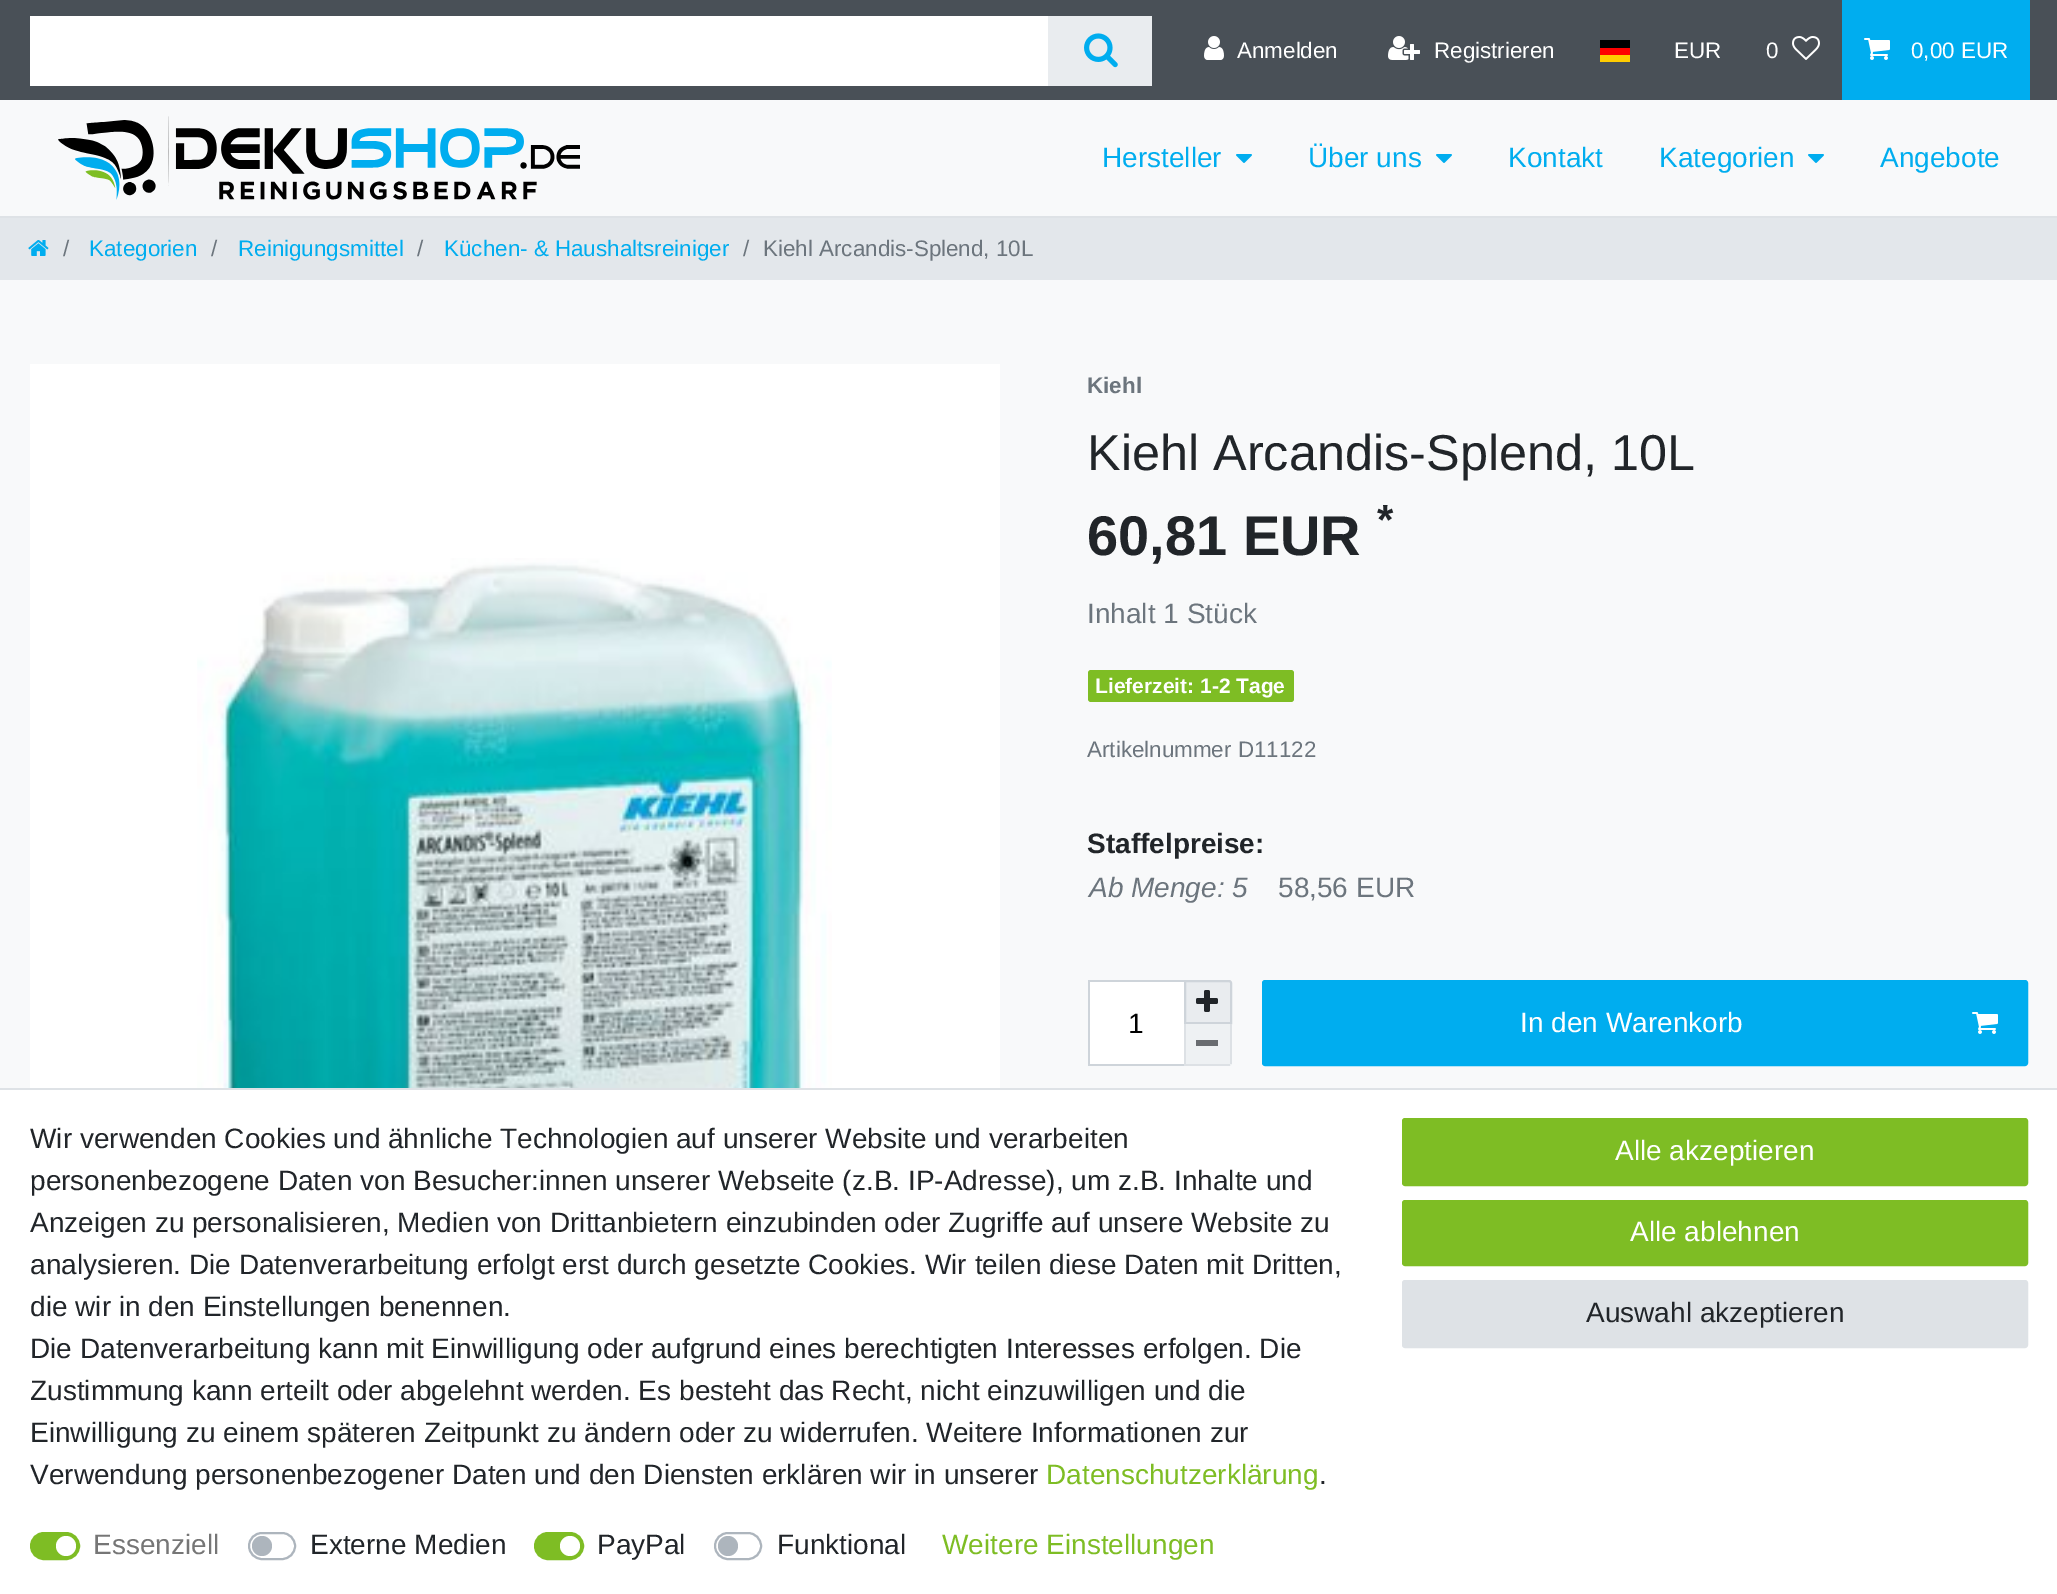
%!PS
<< /PageSize [2057 1594] >> setpagedevice
/rgb { 3 { 255 div 3 1 roll } repeat setrgbcolor } def
/font { [ exch dup neg 0 0 3 -1 roll 0 0 ] selectfont } def
/text { moveto show } def
/circle { newpath 0 360 arc closepath } def
/roundrect { 5 dict begin { /r /h /w /y /x } { exch def } forall
  x r add y moveto x w add y 2 copy h add r arct x w add y h add x 1 index r arct
  x y h add x y r arct x y 2 copy exch w add exch r arct closepath end } def
/picture { 5 dict begin { /h /w /y /x /name } { exch def } forall
  gsave x y translate w h scale
  w h 8 [w 0 0 h 0 0] name (r) file false 3 colorimage grestore end } def
0 1594 translate 1 -1 scale
4 setmiterlimit
248 249 250 rgb
0 0 2057 1594 rectfill
73 80 87 rgb
0 0 2057 100 rectfill
255 255 255 rgb
30 16 1018 70 rectfill
233 236 239 rgb
1048 16 104 70 rectfill
(img_01.rgb) 1084 33 34 35 picture
(img_02.rgb) 1204 36 20 24 picture
(img_03.rgb) 1388 36 32 24 picture
255 204 0 rgb
1600 55 30 7 rectfill
0 0 0 rgb
1600 40 30 8 rectfill
255 0 0 rgb
1600 48 30 7 rectfill
(img_04.rgb) 1792 36 28 24 picture
0 173 239 rgb
1842 0 188 100 rectfill
(img_05.rgb) 1864 38 26 22 picture
222 226 230 rgb
0 216 2057 2 rectfill
(img_06.rgb) 58 116 522 84 picture
(img_07.rgb) 1236 154 16 9 picture
(img_07.rgb) 1436 154 16 9 picture
(img_07.rgb) 1808 154 16 9 picture
227 231 235 rgb
0 218 2057 62 rectfill
(img_08.rgb) 28 240 21 16 picture
255 255 255 rgb
30 364 970 724 rectfill
(img_09.rgb) 197 558 635 530 picture
126 189 36 rgb
1088 670 206 32 3 roundrect fill
255 255 255 rgb
1090 982 94 82 rectfill
206 212 218 rgb
1088 980 96 2 rectfill
1088 1064 96 2 rectfill
1088 980 2 86 rectfill
233 236 239 rgb
1185 981 moveto 44 0 rlineto 1 0 2 1 2 2 rcurveto 0 40 rlineto -46 0 rlineto closepath gsave fill grestore
206 212 218 rgb
2 setlinewidth
stroke
(img_10.rgb) 1196 990 22 22 picture
238 241 243 rgb
1184 1024 moveto 48 0 rlineto 0 39 rlineto 0 1.5 -1.5 3 -3 3 rcurveto -45 0 rlineto closepath fill
221 225 229 rgb
1230 1024 2 40 rectfill
1184 1064 46 2 rectfill
1184 1024 2 42 rectfill
105 108 112 rgb
1196 1040 22 6 rectfill
0 173 239 rgb
1263 981 764 84 2 roundrect gsave fill grestore
stroke
(img_05.rgb) 1972 1012 26 22 picture
255 255 255 rgb
0 1090 2057 504 rectfill
222 226 230 rgb
0 1088 2057 2 rectfill
126 189 36 rgb
31 1533 48 26 13 roundrect gsave fill grestore
stroke
255 255 255 rgb
66 1546 10 circle fill
173 181 189 rgb
249 1533 46 26 13 roundrect stroke
262 1546 10 circle fill
126 189 36 rgb
535 1533 48 26 13 roundrect gsave fill grestore
stroke
255 255 255 rgb
570 1546 10 circle fill
173 181 189 rgb
715 1533 46 26 13 roundrect stroke
728 1546 10 circle fill
126 189 36 rgb
1403 1119 624 66 2 roundrect gsave fill grestore
stroke
1403 1201 624 64 2 roundrect gsave fill grestore
stroke
222 226 230 rgb
1403 1281 624 66 2 roundrect gsave fill grestore
stroke
/LiberationSans-Regular 22.4 font
255 255 255 rgb
(Anmelden) 1237 58 text
(Registrieren) 1434 58 text
(EUR) 1674 58 text
(0) 1766 58 text
(0,00 EUR) 1911 58 text
/LiberationSans-Regular 28 font
0 173 239 rgb
(Hersteller) 1102 167 text
(Über uns) 1308 167 text
(Kontakt) 1508 167 text
(Kategorien) 1659 167 text
(Angebote) 1880 167 text
/LiberationSans-Regular 22.4 font
108 117 125 rgb
(/) 63 256 text
0 173 239 rgb
(Kategorien) 89 256 text
108 117 125 rgb
(/) 211 256 text
0 173 239 rgb
(Reinigungsmittel) 238 256 text
108 117 125 rgb
(/) 417 256 text
0 173 239 rgb
(Küchen- & Haushaltsreiniger) 444 256 text
108 117 125 rgb
(/) 743 256 text
(Kiehl Arcandis-Splend, 10L) 763 256 text
/LiberationSans-Bold 22.4 font
(Kiehl) 1087 393 text
/LiberationSans-Regular 50.4 font
33 37 41 rgb
(Kiehl Arcandis-Splend, 10L) 1087 470 text
/LiberationSans-Bold 42 font
(*) 1377 534 text
/LiberationSans-Bold 56 font
(60,81 EUR) 1087 555 text
/LiberationSans-Regular 28 font
108 117 125 rgb
(Inhalt 1 Stück) 1087 623 text
/LiberationSans-Bold 21 font
255 255 255 rgb
(Lieferzeit: 1-2 Tage) 1095 693 text
/LiberationSans-Regular 22.4 font
108 117 125 rgb
(Artikelnummer D11122) 1087 757 text
/LiberationSans-Bold 28 font
33 37 41 rgb
(Staffelpreise:) 1087 853 text
/LiberationSans-Italic 28 font
108 117 125 rgb
(Ab Menge: 5) 1089 897 text
/LiberationSans-Regular 28 font
(58,56 EUR) 1278 897 text
0 0 0 rgb
(1) 1128 1033 text
255 255 255 rgb
(In den Warenkorb) 1520 1032 text
33 37 41 rgb
(Wir verwenden Cookies und ähnliche Technologien auf unserer Website und verarbeiten) 30 1148 text
(personenbezogene Daten von Besucher:innen unserer Webseite \(z.B. IP-Adresse\), um z.B. Inhalte und) 30 1190 text
(Anzeigen zu personalisieren, Medien von Drittanbietern einzubinden oder Zugriffe auf unsere Website zu) 30 1232 text
(analysieren. Die Datenverarbeitung erfolgt erst durch gesetzte Cookies. Wir teilen diese Daten mit Dritten,) 30 1274 text
(die wir in den Einstellungen benennen.) 30 1316 text
(Die Datenverarbeitung kann mit Einwilligung oder aufgrund eines berechtigten Interesses erfolgen. Die) 30 1358 text
(Zustimmung kann erteilt oder abgelehnt werden. Es besteht das Recht, nicht einzuwilligen und die) 30 1400 text
(Einwilligung zu einem späteren Zeitpunkt zu ändern oder zu widerrufen. Weitere Informationen zur) 30 1442 text
(Verwendung personenbezogener Daten und den Diensten erklären wir in unserer) 30 1484 text
126 189 36 rgb
(Datenschutzerklärung) 1046 1484 text
33 37 41 rgb
(.) 1319 1484 text
118 118 118 rgb
(Essenziell) 93 1554 text
33 37 41 rgb
(Externe Medien) 310 1554 text
(PayPal) 597 1554 text
(Funktional) 777 1554 text
126 189 36 rgb
(Weitere Einstellungen) 942 1554 text
255 255 255 rgb
(Alle akzeptieren) 1615 1160 text
(Alle ablehnen) 1630 1241 text
33 37 41 rgb
(Auswahl akzeptieren) 1586 1322 text
showpage
